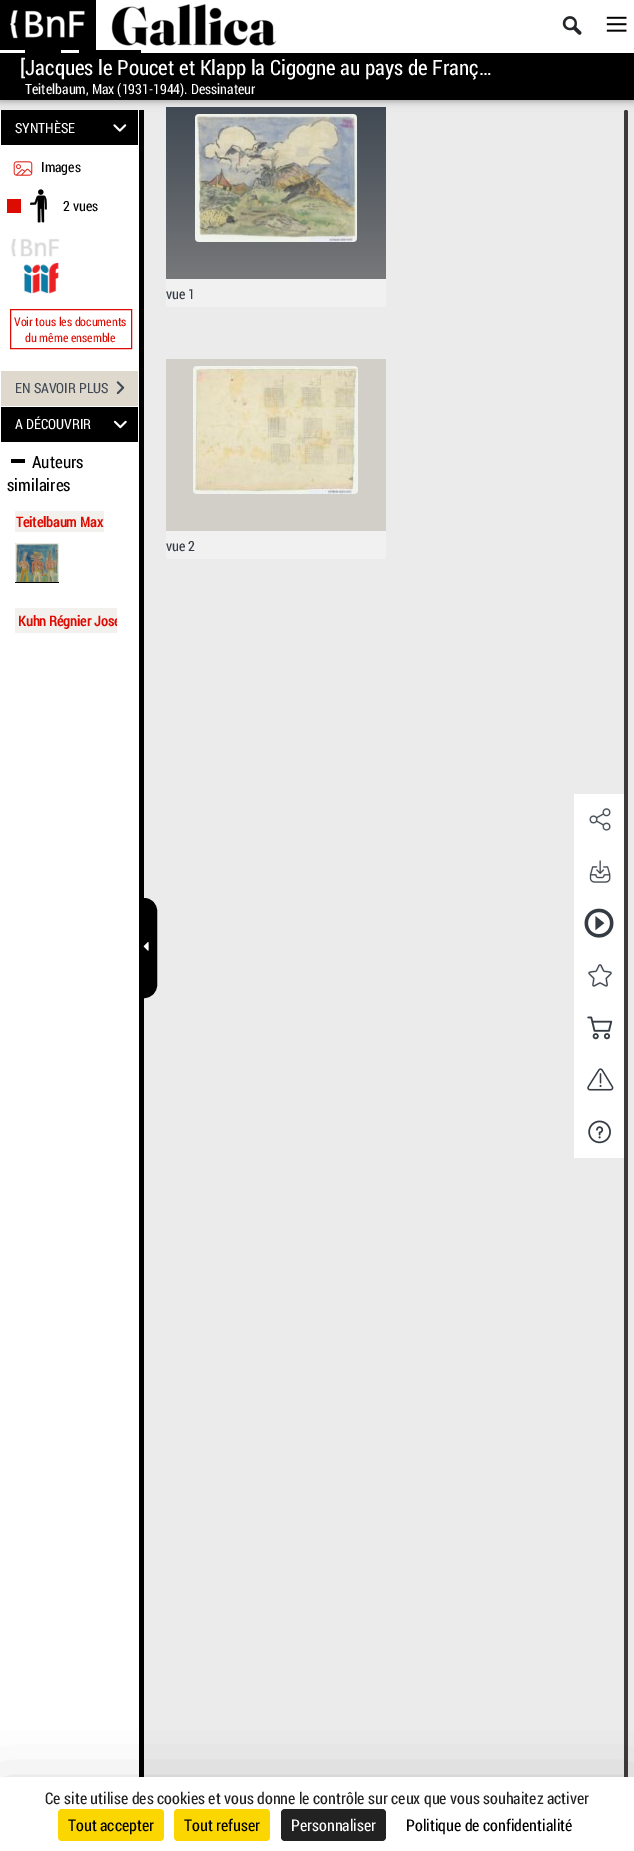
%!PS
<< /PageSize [634 1851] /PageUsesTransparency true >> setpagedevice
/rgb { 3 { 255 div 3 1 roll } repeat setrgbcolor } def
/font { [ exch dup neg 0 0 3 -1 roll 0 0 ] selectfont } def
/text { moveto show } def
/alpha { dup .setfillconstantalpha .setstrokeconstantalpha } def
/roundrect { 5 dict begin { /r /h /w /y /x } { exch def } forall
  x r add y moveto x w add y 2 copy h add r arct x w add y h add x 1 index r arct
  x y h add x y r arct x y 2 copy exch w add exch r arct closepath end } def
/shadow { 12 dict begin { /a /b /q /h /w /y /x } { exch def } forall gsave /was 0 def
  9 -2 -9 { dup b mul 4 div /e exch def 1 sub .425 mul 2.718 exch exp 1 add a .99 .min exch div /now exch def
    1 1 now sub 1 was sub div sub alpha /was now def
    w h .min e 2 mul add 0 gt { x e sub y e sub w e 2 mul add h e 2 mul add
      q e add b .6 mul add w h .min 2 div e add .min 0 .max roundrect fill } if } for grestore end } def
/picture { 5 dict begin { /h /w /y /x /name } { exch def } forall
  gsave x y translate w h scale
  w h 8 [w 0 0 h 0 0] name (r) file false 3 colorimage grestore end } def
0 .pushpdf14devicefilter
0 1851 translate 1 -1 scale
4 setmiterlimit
235 235 235 rgb
0 0 634 1851 rectfill
gsave 166 107 moveto 220 0 rlineto 0 172 rlineto -220 0 rlineto closepath clip newpath
<< /ShadingType 2 /ColorSpace /DeviceRGB /Coords [276 107 276 307] /Extend [true true] /Function << /FunctionType 2 /Domain [0 1] /C0 [0.251 0.286 0.325] /C1 [0.502 0.502 0.502] /N 1 >> >> shfill grestore
(img_14.rgb) 195 114 162 128 picture
59 59 59 rgb
624 110 4 1721 2 roundrect fill
0 0 0 rgb
0 52 634 50 0 5 0.12 shadow
0 52 634 50 0 2 0.16 shadow
255 255 255 rgb
96 0 538 50 rectfill
(img_01.rgb) 0 0 96 50 picture
(img_02.rgb) 111 4 165 42 picture
(img_03.rgb) 562 16 20 19 picture
(img_04.rgb) 606 16 21 16 picture
0 0 0 rgb
0 53 634 47 rectfill
255 255 255 rgb
0 50 634 3 rectfill
0 0 0 rgb
25 50 36 3 rectfill
79 50 62 3 rectfill
139 110 5 1667 rectfill
255 255 255 rgb
0 110 139 1667 rectfill
0 0 0 rgb
1 110 137 35 rectfill
(img_05.rgb) 113 124 14 8 picture
(img_06.rgb) 13 161 20 15 picture
221 12 3 rgb
7 199 14 14 rectfill
(img_07.rgb) 30 189 17 34 picture
(img_08.rgb) 11 238 49 19 picture
(img_09.rgb) 23 262 36 32 picture
10.5 309.5 121 39 rectstroke
223 217 205 rgb
1 371 137 35 rectfill
(img_10.rgb) 116 381 9 14 picture
0 0 0 rgb
1 407 137 35 rectfill
(img_11.rgb) 113 420 14 9 picture
11 459 14 4 rectfill
242 241 237 rgb
15 511 89 21 rectfill
(img_12.rgb) 15 543 44 39 picture
0 0 0 rgb
15 582 44 1 rectfill
242 241 237 rgb
15 608 102 25 rectfill
0 0 0 rgb
144.5 898.5 moveto -0.5 0 rlineto 7 0 12.5 5.5 12.5 12.5 rcurveto 0 74 rlineto 0 7 -5.5 12.5 -12.5 12.5 rcurveto 0.5 0 rlineto closepath gsave fill grestore
stroke
(img_13.rgb) 143 942 6 9 picture
241 241 241 rgb
166 279 220 28 rectfill
210 207 200 rgb
166 359 220 172 rectfill
(img_15.rgb) 193 366 165 128 picture
241 241 241 rgb
166 531 220 28 rectfill
255 255 255 rgb
574 794 50 364 rectfill
(img_16.rgb) 589 808 22 23 picture
(img_17.rgb) 589 860 22 23 picture
(img_18.rgb) 584 908 30 30 picture
(img_19.rgb) 588 964 24 23 picture
(img_20.rgb) 587 1016 26 24 picture
(img_21.rgb) 587 1068 27 23 picture
(img_22.rgb) 588 1120 23 24 picture
0 0 0 rgb
0 1797 634 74 0 30 0.25 shadow
255 255 255 rgb
0 1777 634 74 rectfill
251 214 0 rgb
58 1809 106 32 4 roundrect fill
174 1809 96 32 4 roundrect fill
34 34 34 rgb
281 1809 105 32 4 roundrect fill
/RobotoCondensed-Regular 21 font
255 255 255 rgb
([Jacques le Poucet et Klapp la Cigogne au pays de Franç…) 20 75 text
/RobotoCondensed-Regular 14 font
(Teitelbaum, Max \(1931-1944\). Dessinateur) 25 94 text
(SYNTHÈSE) 15 133 text
0 0 0 rgb
(Images) 41 172 text
(2 vues) 63 211 text
/RobotoCondensed-Regular 12 font
221 12 3 rgb
(Voir tous les documents) 14 326 text
(du même ensemble) 25 342 text
/RobotoCondensed-Regular 14 font
64 73 83 rgb
(EN SAVOIR PLUS) 15 393 text
255 255 255 rgb
(A DÉCOUVRIR) 15 429 text
/RobotoCondensed-Regular 17 font
0 0 0 rgb
(Auteurs) 32 468 text
(similaires) 7 491 text
/RobotoCondensed-Bold 14 font
221 12 3 rgb
(Teitelbaum Max) 16 527 text
(Kuhn Régnier) 18 626 text
gsave
15 608 102 25 rectclip
(Jose) 94 626 text
grestore
/RobotoCondensed-Regular 14 font
52 59 67 rgb
(vue 1) 166 299 text
(vue 2) 166 551 text
/RobotoCondensed-Regular 16 font
34 34 34 rgb
(Ce site utilise des cookies et vous donne le contrôle sur ceux que vous souhaitez activer) 45 1804 text
0 0 0 rgb
(Tout accepter) 68 1831 text
(Tout refuser) 184 1831 text
255 255 255 rgb
(Personnaliser) 291 1831 text
0 0 0 rgb
(Politique de confidentialité) 406 1831 text
.poppdf14devicefilter showpage
